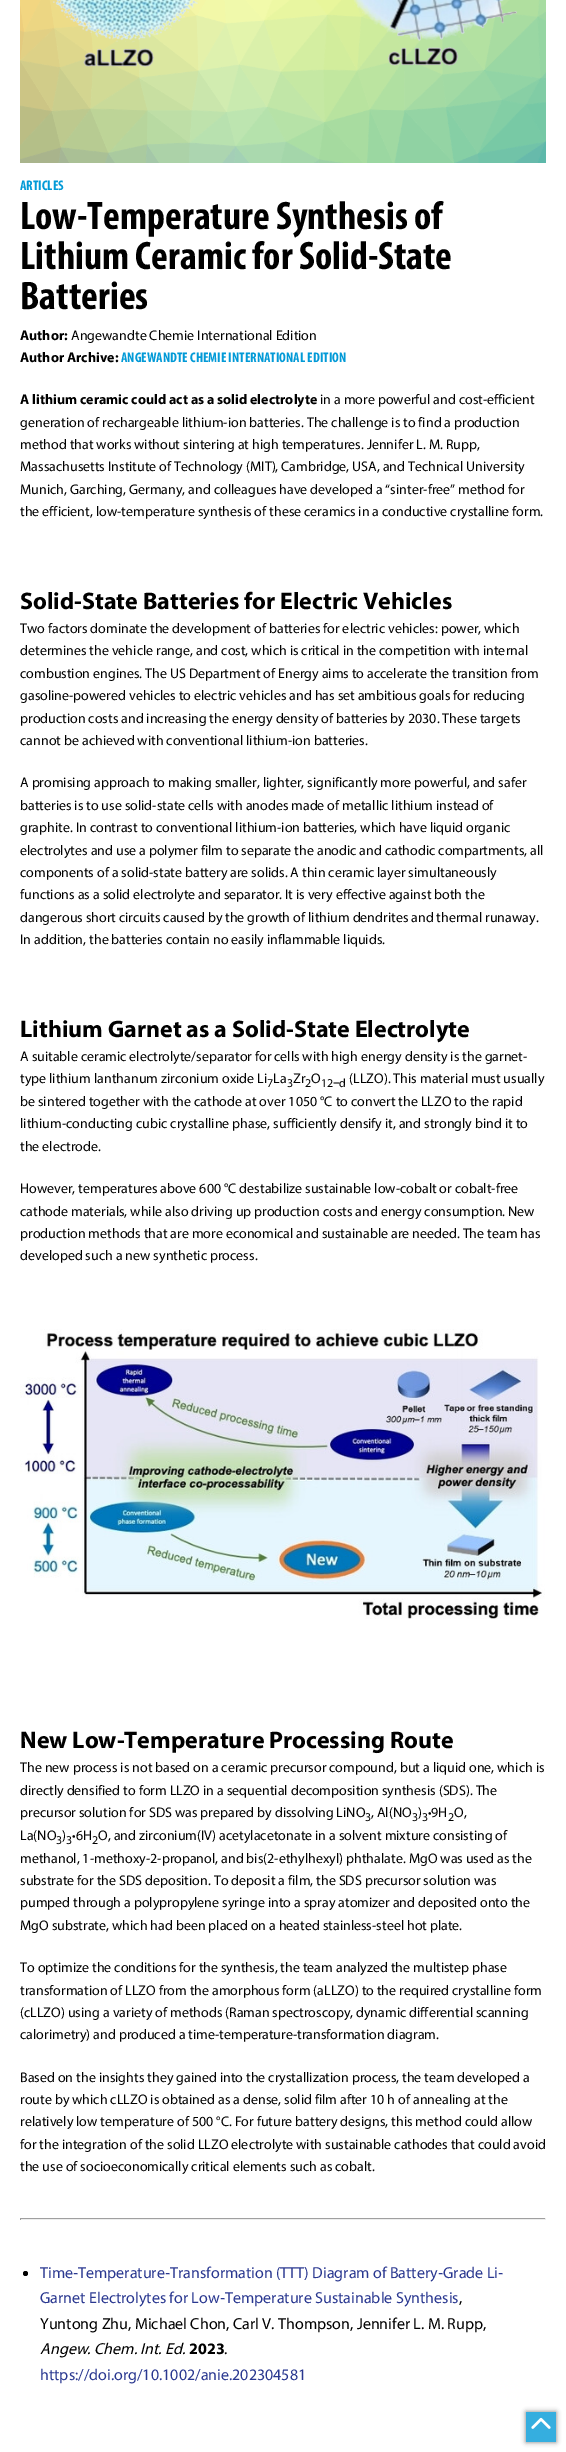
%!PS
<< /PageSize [566 2452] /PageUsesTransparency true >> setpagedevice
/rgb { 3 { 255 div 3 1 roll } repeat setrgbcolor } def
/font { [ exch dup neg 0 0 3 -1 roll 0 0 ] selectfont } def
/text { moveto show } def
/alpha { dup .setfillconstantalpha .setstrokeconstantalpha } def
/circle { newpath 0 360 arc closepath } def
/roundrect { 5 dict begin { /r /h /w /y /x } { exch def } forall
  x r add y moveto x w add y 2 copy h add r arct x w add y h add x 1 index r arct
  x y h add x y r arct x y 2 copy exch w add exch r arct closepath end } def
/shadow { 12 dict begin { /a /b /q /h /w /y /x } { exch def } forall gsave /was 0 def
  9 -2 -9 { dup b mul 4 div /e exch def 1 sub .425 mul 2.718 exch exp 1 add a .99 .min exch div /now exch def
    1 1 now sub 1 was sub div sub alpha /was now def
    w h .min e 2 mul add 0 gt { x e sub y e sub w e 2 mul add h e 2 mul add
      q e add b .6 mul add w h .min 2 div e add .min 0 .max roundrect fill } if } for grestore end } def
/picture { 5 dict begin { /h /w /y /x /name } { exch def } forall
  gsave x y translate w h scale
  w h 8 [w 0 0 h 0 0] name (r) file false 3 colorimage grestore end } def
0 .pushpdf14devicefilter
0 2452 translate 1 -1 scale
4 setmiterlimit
255 255 255 rgb
0 0 566 2452 rectfill
(img_01.rgb) 20 0 526 163 picture
(img_02.rgb) 20 1329 525 290 picture
159 159 159 rgb
20 2218 526 1 rectfill
238 238 238 rgb
545 2218 1 2 rectfill
20 2219 526 1 rectfill
159 159 159 rgb
20 2218 1 2 rectfill
0 0 0 rgb
25.5 2273.5 2.5 circle fill
526 2412 30 30 0 2.5 0.5 shadow
53 174 223 rgb
526 2412 30 30 rectfill
(img_03.rgb) 531 2417 20 12 picture
/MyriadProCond-Bold 14 font
2 154 215 rgb
(ARTICLES) 20 190 text
/MyriadProCond-Bold 40 font
0 0 0 rgb
(Low-Temperature Synthesis of) 20 229 text
(Lithium Ceramic for Solid-State) 20 269 text
(Batteries) 20 309 text
/Myriad-Bold 14 font
(Author:) 20 340 text
/Myriad-Regular 14 font
(Angewandte Chemie International Edition) 71 340 text
/Myriad-Bold 14 font
(Author Archive:) 20 362 text
/MyriadProCond-Bold 14 font
2 154 215 rgb
(ANGEWANDTE CHEMIE INTERNATIONAL EDITION) 121 362 text
/Myriad-Bold 14 font
0 0 0 rgb
(A lithium ceramic could act as a solid electrolyte) 20 404 text
/Myriad-Regular 14 font
(in a more powerful and cost-efficient) 320 404 text
(generation of rechargeable lithium-ion batteries. The challenge is to find a production) 20 427 text
(method that works without sintering at high temperatures. Jennifer L. M. Rupp,) 20 449 text
(Massachusetts Institute of Technology \(MIT\), Cambridge, USA, and Technical University) 20 471 text
(Munich, Garching, Germany, and colleagues have developed a “sinter-free” method for) 20 494 text
(the efficient, low-temperature synthesis of these ceramics in a conductive crystalline form.) 20 516 text
/Myriad-Bold 24 font
(Solid-State Batteries for Electric Vehicles) 20 609 text
/Myriad-Regular 14 font
(Two factors dominate the development of batteries for electric vehicles: power, which) 20 633 text
(determines the vehicle range, and cost, which is critical in the competition with internal) 20 655 text
(combustion engines. The US Department of Energy aims to accelerate the transition from) 20 678 text
(gasoline-powered vehicles to electric vehicles and has set ambitious goals for reducing) 20 700 text
(production costs and increasing the energy density of batteries by 2030. These targets) 20 723 text
(cannot be achieved with conventional lithium-ion batteries.) 20 745 text
(A promising approach to making smaller, lighter, significantly more powerful, and safer) 20 787 text
(batteries is to use solid-state cells with anodes made of metallic lithium instead of) 20 810 text
(graphite. In contrast to conventional lithium-ion batteries, which have liquid organic) 20 832 text
(electrolytes and use a polymer film to separate the anodic and cathodic compartments, all) 20 855 text
(components of a solid-state battery are solids. A thin ceramic layer simultaneously) 20 877 text
(functions as a solid electrolyte and separator. It is very effective against both the) 20 899 text
(dangerous short circuits caused by the growth of lithium dendrites and thermal runaway.) 20 922 text
(In addition, the batteries contain no easily inflammable liquids.) 20 944 text
/Myriad-Bold 24 font
(Lithium Garnet as a Solid-State Electrolyte) 20 1037 text
/Myriad-Regular 14 font
(A suitable ceramic electrolyte/separator for cells with high energy density is the garnet-) 20 1061 text
(type lithium lanthanum zirconium oxide Li) 20 1083 text
/Myriad-Regular 12 font
(7) 267 1087 text
/Myriad-Regular 14 font
(La) 273 1083 text
/Myriad-Regular 12 font
(3) 287 1087 text
/Myriad-Regular 14 font
(Zr) 293 1083 text
/Myriad-Regular 12 font
(2) 305 1087 text
/Myriad-Regular 14 font
(O) 311 1083 text
/Myriad-Regular 12 font
(12) 321 1087 text
/LiberationSans-Regular 12 font
(−) 333 1087 text
/Myriad-Regular 12 font
(d) 339 1087 text
/Myriad-Regular 14 font
(\(LLZO\). This material must usually) 349 1083 text
(be sintered together with the cathode at over 1050 °C to convert the LLZO to the rapid) 20 1106 text
(lithium-conducting cubic crystalline phase, sufficiently densify it, and strongly bind it to) 20 1128 text
(the electrode.) 20 1151 text
(However, temperatures above 600 °C destabilize sustainable low-cobalt or cobalt-free) 20 1193 text
(cathode materials, while also driving up production costs and energy consumption. New) 20 1216 text
(production methods that are more economical and sustainable are needed. The team has) 20 1238 text
(developed such a new synthetic process.) 20 1260 text
/Myriad-Bold 24 font
(New Low-Temperature Processing Route) 20 1748 text
/Myriad-Regular 14 font
(The new process is not based on a ceramic precursor compound, but a liquid one, which is) 20 1772 text
(directly densified to form LLZO in a sequential decomposition synthesis \(SDS\). The) 20 1795 text
(precursor solution for SDS was prepared by dissolving LiNO) 20 1817 text
/Myriad-Regular 12 font
(3) 365 1821 text
/Myriad-Regular 14 font
(, Al\(NO) 371 1817 text
/Myriad-Regular 12 font
(3) 412 1821 text
/Myriad-Regular 14 font
(\)) 418 1817 text
/Myriad-Regular 12 font
(3) 422 1821 text
/Myriad-Bold 14 font
(·) 428 1817 text
/Myriad-Regular 14 font
(9H) 431 1817 text
/Myriad-Regular 12 font
(2) 448 1821 text
/Myriad-Regular 14 font
(O,) 454 1817 text
(La\(NO) 20 1840 text
/Myriad-Regular 12 font
(3) 56 1844 text
/Myriad-Regular 14 font
(\)) 62 1840 text
/Myriad-Regular 12 font
(3) 66 1844 text
/Myriad-Bold 14 font
(·) 72 1840 text
/Myriad-Regular 14 font
(6H) 76 1840 text
/Myriad-Regular 12 font
(2) 92 1844 text
/Myriad-Regular 14 font
(O, and zirconium\(IV\) acetylacetonate in a solvent mixture consisting of) 98 1840 text
(methanol, 1-methoxy-2-propanol, and bis\(2-ethylhexyl\) phthalate. MgO was used as the) 20 1863 text
(substrate for the SDS deposition. To deposit a film, the SDS precursor solution was) 20 1885 text
(pumped through a polypropylene syringe into a spray atomizer and deposited onto the) 20 1907 text
(MgO substrate, which had been placed on a heated stainless-steel hot plate.) 20 1930 text
(To optimize the conditions for the synthesis, the team analyzed the multistep phase) 20 1972 text
(transformation of LLZO from the amorphous form \(aLLZO\) to the required crystalline form) 20 1995 text
(\(cLLZO\) using a variety of methods \(Raman spectroscopy, dynamic differential scanning) 20 2017 text
(calorimetry\) and produced a time-temperature-transformation diagram.) 20 2039 text
(Based on the insights they gained into the crystallization process, the team developed a) 20 2082 text
(route by which cLLZO is obtained as a dense, solid film after 10 h of annealing at the) 20 2104 text
(relatively low temperature of 500 °C. For future battery designs, this method could allow) 20 2126 text
(for the integration of the solid LLZO electrolyte with sustainable cathodes that could avoid) 20 2149 text
(the use of socioeconomically critical elements such as cobalt.) 20 2171 text
/Myriad-Regular 16 font
42 56 144 rgb
(Time) 40 2278 text
/LiberationSans-Regular 16 font
(‐) 73 2278 text
/Myriad-Regular 16 font
(Temperature) 78 2278 text
/LiberationSans-Regular 16 font
(‐) 165 2278 text
/Myriad-Regular 16 font
(Transformation \(TTT\) Diagram of Battery) 170 2278 text
/LiberationSans-Regular 16 font
(‐) 438 2278 text
/Myriad-Regular 16 font
(Grade Li) 443 2278 text
/LiberationSans-Regular 16 font
(‐) 498 2278 text
/Myriad-Regular 16 font
(Garnet Electrolytes for Low) 40 2303 text
/LiberationSans-Regular 16 font
(‐) 220 2303 text
/Myriad-Regular 16 font
(Temperature Sustainable Synthesis) 225 2303 text
0 0 0 rgb
(,) 459 2303 text
(Yuntong Zhu, Michael Chon, Carl V. Thompson, Jennifer L. M. Rupp,) 40 2329 text
/Myriad-Italic 16 font
(Angew. Chem. Int. Ed.) 40 2354 text
/Myriad-Bold 16 font
(2023) 189 2354 text
/Myriad-Regular 16 font
(.) 224 2354 text
42 56 144 rgb
(https://doi.org/10.1002/anie.202304581) 40 2380 text
.poppdf14devicefilter showpage
